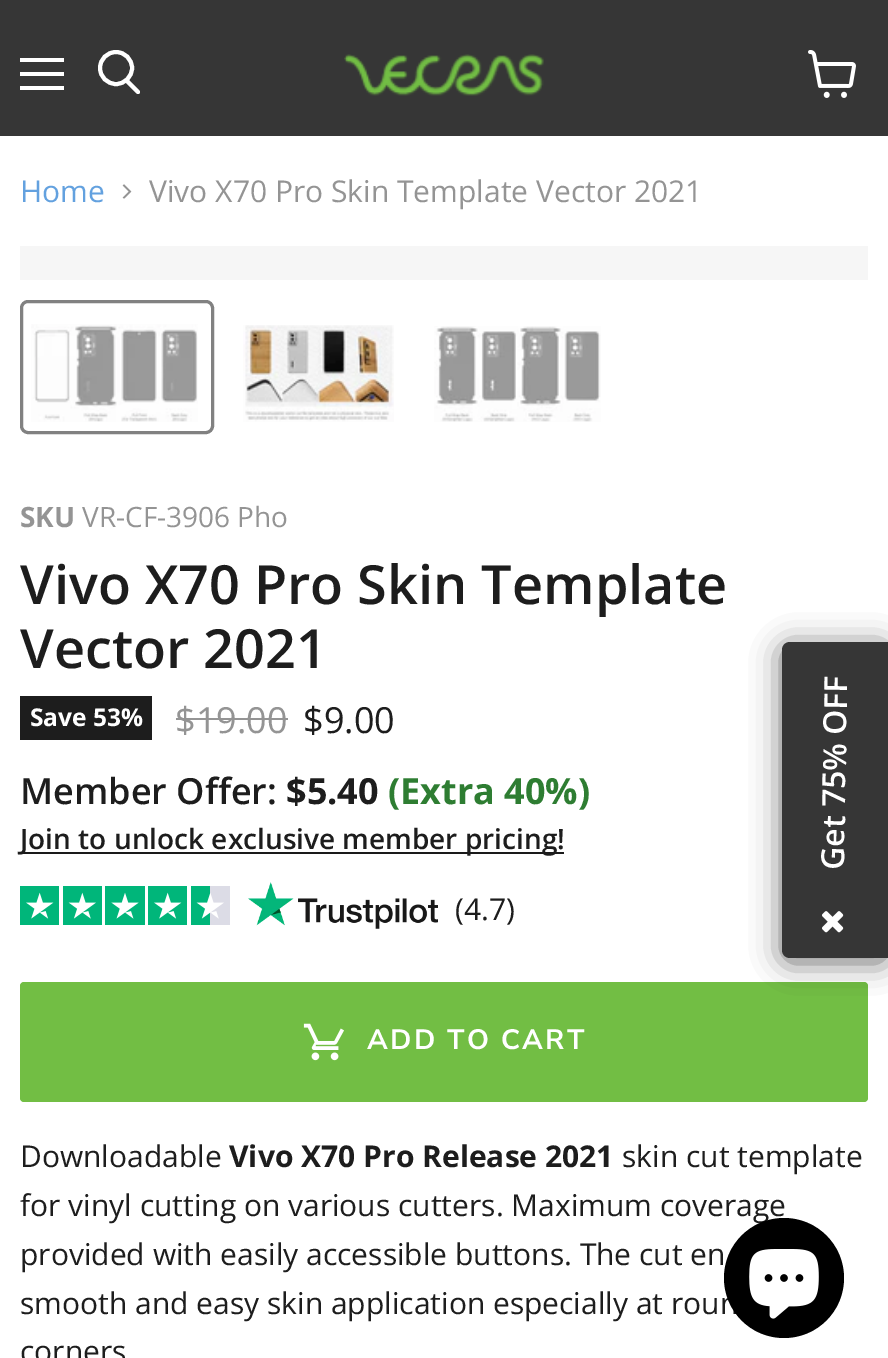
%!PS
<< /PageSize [888 1358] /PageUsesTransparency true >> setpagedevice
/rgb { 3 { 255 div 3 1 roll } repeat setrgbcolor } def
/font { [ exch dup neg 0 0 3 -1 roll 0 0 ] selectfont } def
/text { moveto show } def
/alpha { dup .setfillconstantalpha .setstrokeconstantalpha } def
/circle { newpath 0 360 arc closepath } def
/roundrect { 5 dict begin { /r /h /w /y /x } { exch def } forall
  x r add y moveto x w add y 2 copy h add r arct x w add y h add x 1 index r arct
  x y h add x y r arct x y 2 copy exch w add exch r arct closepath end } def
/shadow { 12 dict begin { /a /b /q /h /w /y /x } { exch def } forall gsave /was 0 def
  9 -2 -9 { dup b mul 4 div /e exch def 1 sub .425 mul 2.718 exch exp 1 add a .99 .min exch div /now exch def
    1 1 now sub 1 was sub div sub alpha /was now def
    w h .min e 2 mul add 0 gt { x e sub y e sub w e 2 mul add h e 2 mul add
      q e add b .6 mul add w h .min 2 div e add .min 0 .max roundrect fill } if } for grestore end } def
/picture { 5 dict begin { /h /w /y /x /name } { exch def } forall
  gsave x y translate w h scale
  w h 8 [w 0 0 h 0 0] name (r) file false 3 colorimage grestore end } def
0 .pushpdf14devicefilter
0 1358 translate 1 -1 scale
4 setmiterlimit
255 255 255 rgb
0 0 888 1358 rectfill
54 54 54 rgb
0 0 888 136 rectfill
255 255 255 rgb
20 58 44 4 rectfill
20 72 44 4 rectfill
20 86 44 4 rectfill
4 setlinewidth
1 setlinecap
138 92 moveto -11 -11 rlineto stroke
0 setlinecap
116 68 16 circle stroke
(img_01.rgb) 344 54 200 42 picture
(img_02.rgb) 808 50 48 48 picture
(img_03.rgb) 122 184 10 15 picture
246 246 246 rgb
20 246 848 34 rectfill
129 129 129 rgb
3 setlinewidth
21.5 301.5 191 131 6.5 roundrect stroke
(img_04.rgb) 31 324 167 98 picture
(img_05.rgb) 243 325 151 97 picture
(img_06.rgb) 434 326 167 96 picture
29 29 29 rgb
20 696 132 44 rectfill
148 148 148 rgb
176 718 112 2 rectfill
26 26 26 rgb
20 852 544 2 rectfill
(img_07.rgb) 20 886 210 39 picture
(img_08.rgb) 248 882 190 47 picture
114 190 68 rgb
20 982 848 120 4 roundrect fill
(img_09.rgb) 303 1023 41 38 picture
0 0 0 rgb
782 646 106 316 8 15 0.6 shadow
54 54 54 rgb
790 642 moveto 98 0 rlineto 0 316 rlineto -98 0 rlineto -4.5 0 -8 -3.5 -8 -8 rcurveto 0 -300 rlineto 0 -4.5 3.5 -8 8 -8 rcurveto closepath fill
(img_10.rgb) 822 911 22 22 picture
/OpenSans-Regular 30 font
99 161 223 rgb
(Home) 20 202 text
148 148 148 rgb
(Vivo X70 Pro Skin Template Vector 2021) 149 202 text
/OpenSans-Bold 28 font
(SKU) 20 527 text
/OpenSans-Regular 28 font
(VR-CF-3906 Pho) 82 527 text
/OpenSans-SemiBold 54 font
29 29 29 rgb
(Vivo X70 Pro Skin Template) 20 604 text
(Vector 2021) 20 668 text
/OpenSans-Bold 24.5 font
255 255 255 rgb
(Save 53%) 30 726 text
/OpenSans-Regular 36 font
148 148 148 rgb
($19.00) 175 733 text
29 29 29 rgb
($9.00) 303 733 text
/OpenSans-SemiBold 36 font
(Member Offer:) 20 804 text
/OpenSans-Bold 36 font
($5.40) 286 804 text
46 125 50 rgb
(\(Extra 40%\)) 388 804 text
/OpenSans-SemiBold 28 font
29 29 29 rgb
(Join to unlock exclusive member pricing!) 20 849 text
/OpenSans-Regular 30 font
(\(4.7\)) 455 920 text
/NunitoSans-Bold 28 font
255 255 255 rgb
367 1049 moveto 2.25 0 (ADD TO CART) ashow
/OpenSans-Regular 30 font
29 29 29 rgb
(Downloadable) 20 1167 text
/OpenSans-Bold 30 font
(Vivo X70 Pro Release 2021) 229 1167 text
/OpenSans-Regular 30 font
(skin cut template) 622 1167 text
(for vinyl cutting on various cutters. Maximum coverage) 20 1216 text
(provided with easily accessible buttons. The cut en) 20 1265 text
(smooth and easy skin application especially at roun) 20 1314 text
(corners) 20 1362 text
/OpenSans-SemiBold 32 font
255 255 255 rgb
gsave 844 870 translate -89 rotate 0 0 moveto (Get 75% OFF) show grestore
0 0 0 rgb
784 1278 60 circle fill
(img_11.rgb) 749 1249 70 70 picture
.poppdf14devicefilter showpage
